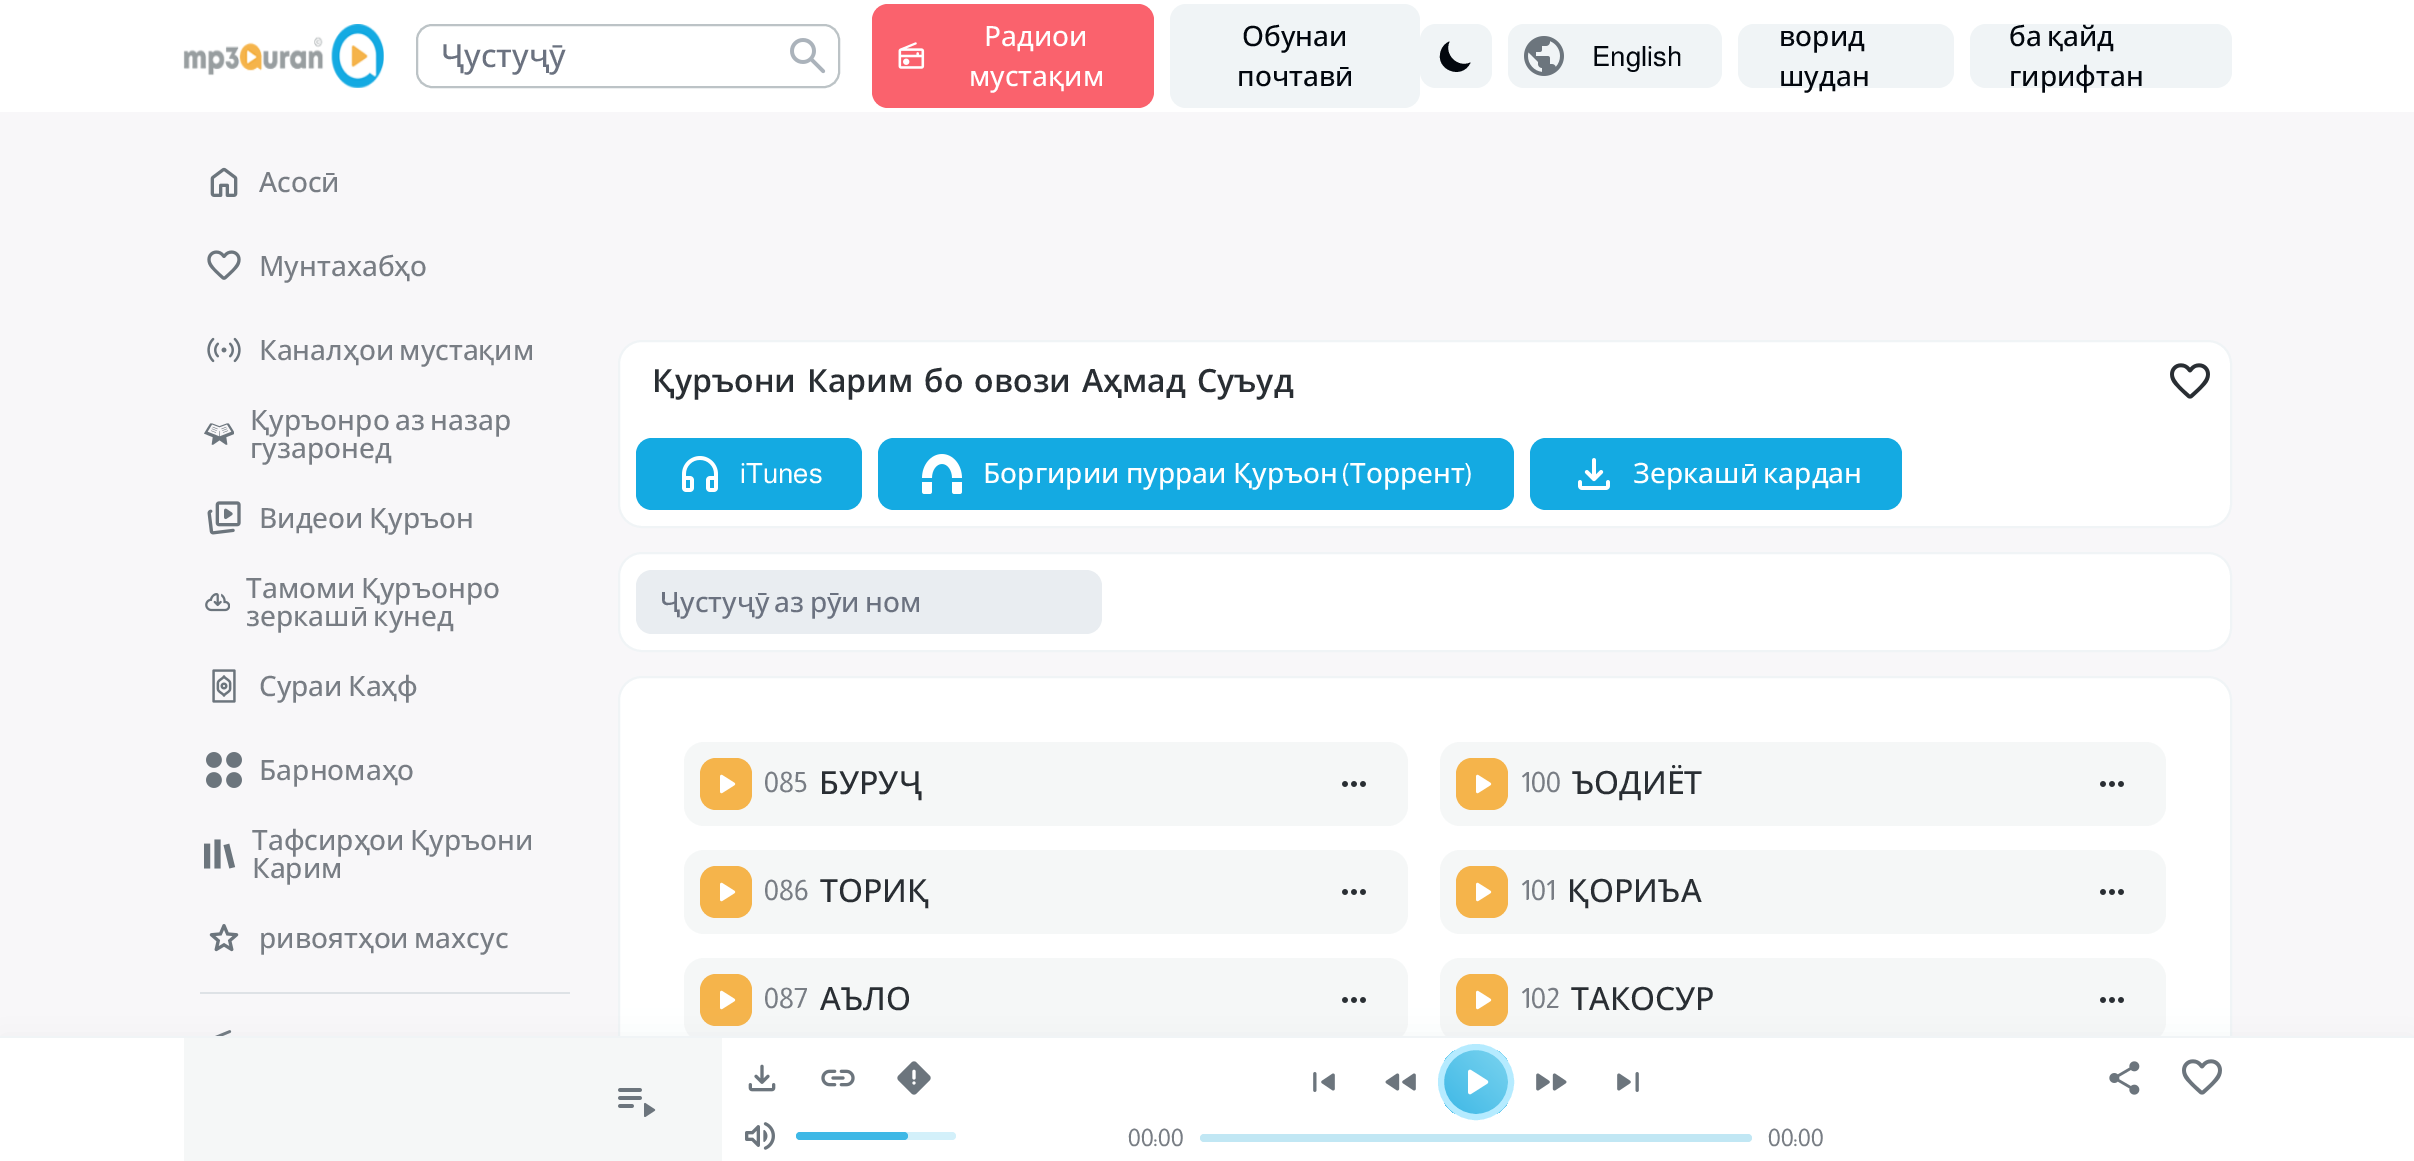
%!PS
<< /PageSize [2414 1161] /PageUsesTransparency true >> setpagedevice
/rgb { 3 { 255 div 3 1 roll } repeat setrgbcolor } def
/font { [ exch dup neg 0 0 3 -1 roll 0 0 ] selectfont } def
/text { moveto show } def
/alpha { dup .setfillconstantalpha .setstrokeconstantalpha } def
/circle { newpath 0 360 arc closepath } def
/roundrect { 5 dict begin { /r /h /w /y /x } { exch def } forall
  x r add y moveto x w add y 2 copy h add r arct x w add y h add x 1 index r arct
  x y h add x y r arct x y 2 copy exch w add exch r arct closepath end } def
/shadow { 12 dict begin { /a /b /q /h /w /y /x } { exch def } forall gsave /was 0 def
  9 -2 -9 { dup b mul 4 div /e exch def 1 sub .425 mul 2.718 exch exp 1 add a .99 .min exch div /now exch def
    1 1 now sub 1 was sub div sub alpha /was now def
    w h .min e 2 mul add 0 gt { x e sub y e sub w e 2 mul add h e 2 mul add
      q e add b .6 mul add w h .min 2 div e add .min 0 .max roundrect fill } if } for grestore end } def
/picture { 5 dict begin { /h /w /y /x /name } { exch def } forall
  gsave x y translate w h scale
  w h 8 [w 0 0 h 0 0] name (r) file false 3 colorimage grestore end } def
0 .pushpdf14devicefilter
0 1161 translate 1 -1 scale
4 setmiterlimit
248 247 249 rgb
0 0 2414 1161 rectfill
255 255 255 rgb
0 0 2414 112 rectfill
(img_01.rgb) 183 24 201 64 picture
188 195 198 rgb
2 setlinewidth
417 25 422 62 15 roundrect stroke
(img_02.rgb) 790 38 36 36 picture
250 98 109 rgb
872 4 282 104 16 roundrect fill
(img_03.rgb) 898 42 27 27 picture
240 244 246 rgb
1170 4 250 104 16 roundrect fill
1420 24 72 64 16 roundrect fill
2 7 14 rgb
1470.5 62.5 moveto -13 6 -27 -8 -21 -21 rcurveto -4 1.5 -7 5 -8.5 9 rcurveto -7 19 21 30.5 29.5 12 rcurveto closepath fill
240 244 246 rgb
1508 24 214 64 16 roundrect fill
(img_04.rgb) 1524 36 40 40 picture
1738 24 216 64 16 roundrect fill
1970 24 262 64 16 roundrect fill
(img_05.rgb) 210 167 28 30 picture
(img_06.rgb) 207 250 34 30 picture
(img_07.rgb) 207 337 34 26 picture
(img_08.rgb) 204 423 30 22 picture
(img_09.rgb) 207 501 34 34 picture
(img_10.rgb) 205 593 25 19 picture
(img_11.rgb) 212 669 24 34 picture
(img_12.rgb) 206 752 36 36 picture
(img_13.rgb) 204 839 32 30 picture
(img_14.rgb) 209 924 30 28 picture
222 226 230 rgb
200 992 370 2 rectfill
(img_15.rgb) 215 1030 17 6 picture
255 255 255 rgb
619 341 1612 186 23 roundrect gsave fill grestore
240 244 246 rgb
stroke
(img_16.rgb) 2170 363 40 36 picture
20 170 226 rgb
636 438 226 72 16 roundrect fill
(img_17.rgb) 682 456 36 36 picture
878 438 636 72 16 roundrect fill
(img_18.rgb) 922 454 40 40 picture
1530 438 372 72 16 roundrect fill
(img_19.rgb) 1578 458 32 32 picture
255 255 255 rgb
619 553 1612 98 23 roundrect gsave fill grestore
240 244 246 rgb
stroke
233 237 241 rgb
636 570 466 64 16 roundrect fill
255 255 255 rgb
619 677 1612 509 23 roundrect gsave fill grestore
240 244 246 rgb
stroke
245 247 247 rgb
684 742 724 84 20 roundrect fill
245 180 75 rgb
700 758 52 52 16 roundrect fill
(img_20.rgb) 720 774 16 20 picture
(img_21.rgb) 1342 781 24 6 picture
245 247 247 rgb
684 850 724 84 20 roundrect fill
245 180 75 rgb
700 866 52 52 16 roundrect fill
(img_20.rgb) 720 882 16 20 picture
(img_21.rgb) 1342 889 24 6 picture
245 247 247 rgb
684 958 724 84 20 roundrect fill
245 180 75 rgb
700 974 52 52 16 roundrect fill
(img_20.rgb) 720 990 16 20 picture
(img_21.rgb) 1342 997 24 6 picture
245 247 247 rgb
1440 742 726 84 20 roundrect fill
245 180 75 rgb
1456 758 52 52 16 roundrect fill
(img_20.rgb) 1476 774 16 20 picture
(img_21.rgb) 2100 781 24 6 picture
245 247 247 rgb
1440 850 726 84 20 roundrect fill
245 180 75 rgb
1456 866 52 52 16 roundrect fill
(img_20.rgb) 1476 882 16 20 picture
(img_21.rgb) 2100 889 24 6 picture
245 247 247 rgb
1440 958 726 84 20 roundrect fill
245 180 75 rgb
1456 974 52 52 16 roundrect fill
(img_20.rgb) 1476 990 16 20 picture
(img_21.rgb) 2100 997 24 6 picture
188 195 198 rgb
0 1036 2414 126 0 16 0.15 shadow
255 255 255 rgb
0 1038 2414 123 rectfill
240 244 246 rgb
0 1036 2414 2 rectfill
245 247 247 rgb
184 1038 538 123 rectfill
(img_22.rgb) 618 1088 38 29 picture
(img_23.rgb) 748 1064 28 28 picture
(img_24.rgb) 821 1069 34 18 picture
(img_25.rgb) 897 1061 34 34 picture
(img_26.rgb) 745 1122 30 28 picture
211 240 250 rgb
796 1132 160 8 4 roundrect fill
62 184 230 rgb
796 1132 112 8 4 roundrect fill
(img_27.rgb) 2109 1061 31 34 picture
(img_28.rgb) 2182 1059 40 36 picture
(img_29.rgb) 1313 1072 22 20 picture
(img_30.rgb) 1385 1073 31 18 picture
gsave
1438 1044 76 76 38 roundrect clip newpath
gsave 1444 1050 moveto 64 0 rlineto 0 64 rlineto -64 0 rlineto closepath clip newpath
<< /ShadingType 2 /ColorSpace /DeviceRGB /Coords [1444 1114 1508 1050] /Extend [true true] /Function << /FunctionType 2 /Domain [0 1] /C0 [0.243 0.722 0.902] /C1 [0.478 0.827 0.937] /N 1 >> >> shfill grestore
grestore
181 235 255 rgb
6 setlinewidth
1476 1082 35 circle stroke
(img_31.rgb) 1468 1069 21 26 picture
(img_32.rgb) 1536 1073 31 18 picture
(img_33.rgb) 1617 1072 22 20 picture
193 231 244 rgb
1200 1134 552 8 4 roundrect fill
/OpenSans-Medium 32 font
107 114 128 rgb
(Ҷустуҷӯ) 441 67 text
/OpenSans-Medium 28 font
255 255 255 rgb
(Радиои) 984 46 text
(мустақим) 969 86 text
2 7 14 rgb
(Обунаи) 1242 46 text
(почтавӣ) 1237 86 text
/Almarai-Regular 28 font
(English) 1592 66 text
/OpenSans-Medium 28 font
(ворид) 1779 46 text
(шудан) 1779 86 text
2009 46 moveto -2 0 32 (ба қайд) widthshow
(гирифтан) 2009 86 text
120 125 132 rgb
(Асосӣ) 259 192 text
(Мунтахабҳо) 259 276 text
259 360 moveto -2 0 32 (Каналҳои мустақим) widthshow
250 430 moveto -2 0 32 (Қуръонро аз назар) widthshow
(гузаронед) 250 458 text
259 528 moveto -2 0 32 (Видеои Қуръон) widthshow
246 598 moveto -2 0 32 (Тамоми Қуръонро) widthshow
246 626 moveto -2 0 32 (зеркашӣ кунед) widthshow
259 696 moveto -2 0 32 (Сураи Каҳф) widthshow
(Барномаҳо) 259 780 text
252 850 moveto -2 0 32 (Тафсирҳои Қуръони) widthshow
(Карим) 252 878 text
259 948 moveto -2 0 32 (ривоятҳои махсус) widthshow
/OpenSans-SemiBold 32 font
41 46 51 rgb
652 392 moveto 2.75 0 32 (Қуръони Карим бо овози Аҳмад Суъуд) widthshow
/Almarai-Regular 28 font
255 255 255 rgb
(iTunes) 740 483 text
/OpenSans-Medium 28 font
983 483 moveto -1 0 32 (Боргирии пурраи Қуръон) widthshow
/Almarai-Regular 28 font
(\() 1341 483 text
/OpenSans-Medium 28 font
(Торрент) 1350 483 text
/Almarai-Regular 28 font
(\)) 1464 483 text
/OpenSans-Medium 28 font
1633 483 moveto -2 0 32 (Зеркашӣ кардан) widthshow
107 114 128 rgb
660 612 moveto -2 0 32 (Ҷустуҷӯ аз рӯи ном) widthshow
/Almarai-Regular 28 font
120 125 132 rgb
(085) 764 792 text
/OpenSans-Medium 32 font
41 46 51 rgb
(БУРУҶ) 819 794 text
/Almarai-Regular 28 font
120 125 132 rgb
(086) 764 900 text
/OpenSans-Medium 32 font
41 46 51 rgb
(ТОРИҚ) 820 902 text
/Almarai-Regular 28 font
120 125 132 rgb
(087) 764 1008 text
/OpenSans-Medium 32 font
41 46 51 rgb
(АЪЛО) 820 1010 text
/Almarai-Regular 28 font
120 125 132 rgb
(100) 1521 792 text
/OpenSans-Medium 32 font
41 46 51 rgb
(ЪОДИЁТ) 1572 794 text
/Almarai-Regular 28 font
120 125 132 rgb
(101) 1521 900 text
/OpenSans-Medium 32 font
41 46 51 rgb
(ҚОРИЪА) 1567 902 text
/Almarai-Regular 28 font
120 125 132 rgb
(102) 1521 1008 text
/OpenSans-Medium 32 font
41 46 51 rgb
(ТАКОСУР) 1571 1010 text
/Almarai-Regular 24 font
120 125 132 rgb
(00:00) 1128 1146 text
(00:00) 1768 1146 text
.poppdf14devicefilter showpage
